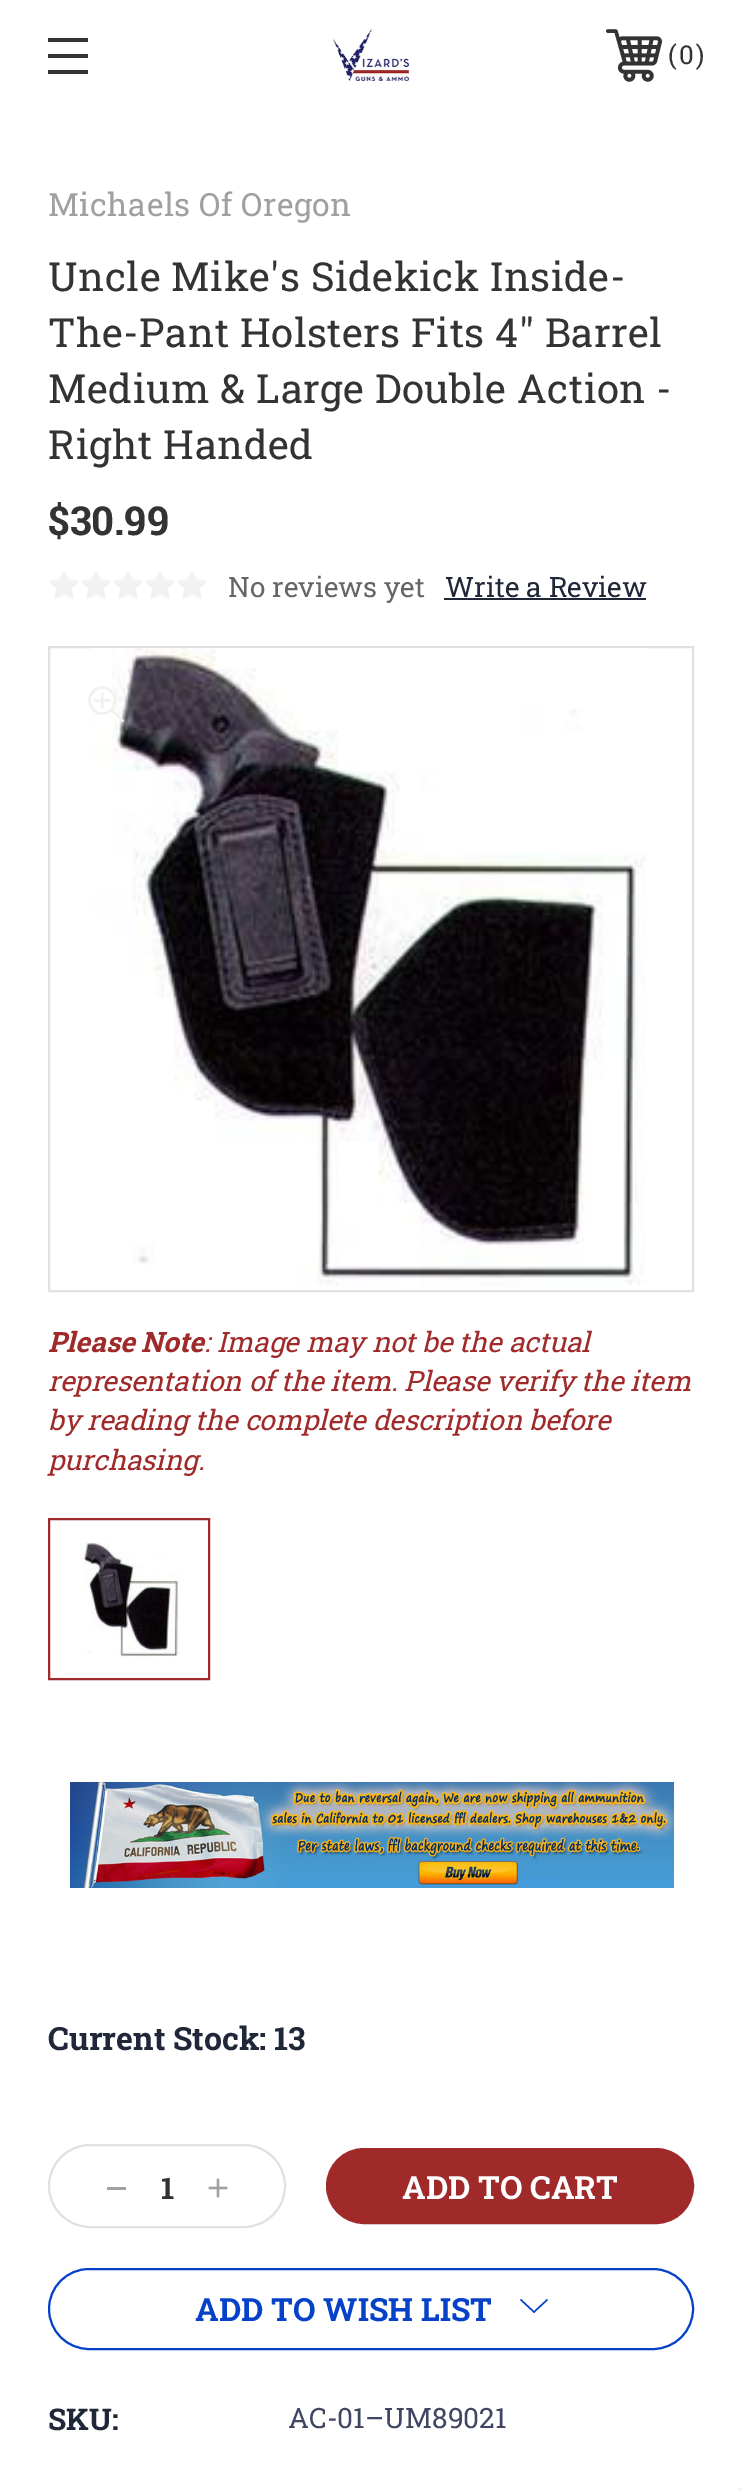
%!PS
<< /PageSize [742 2491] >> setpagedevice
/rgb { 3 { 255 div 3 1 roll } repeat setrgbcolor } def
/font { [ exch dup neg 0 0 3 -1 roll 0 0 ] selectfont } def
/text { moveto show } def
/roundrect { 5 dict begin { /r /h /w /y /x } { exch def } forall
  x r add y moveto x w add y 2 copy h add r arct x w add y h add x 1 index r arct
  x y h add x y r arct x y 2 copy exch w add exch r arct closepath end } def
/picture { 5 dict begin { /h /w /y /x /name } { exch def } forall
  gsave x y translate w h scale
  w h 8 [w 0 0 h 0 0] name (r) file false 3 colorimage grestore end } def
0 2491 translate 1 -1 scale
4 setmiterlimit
255 255 255 rgb
0 0 742 2491 rectfill
51 51 51 rgb
48 54 40 4 rectfill
48 38 40 4 rectfill
48 70 40 4 rectfill
(img_01.rgb) 333 29 77 52 picture
(img_02.rgb) 606 29 56 53 picture
(img_03.rgb) 49 571 30 28 picture
(img_03.rgb) 81 571 30 28 picture
(img_03.rgb) 113 571 30 28 picture
(img_03.rgb) 145 571 30 28 picture
(img_03.rgb) 177 571 30 28 picture
32 39 56 rgb
444 598 202 2 rectfill
225 225 225 rgb
2 setlinewidth
49 647 644 644 rectstroke
(img_04.rgb) 92 648 554 642 picture
(img_05.rgb) 88 686 36 37 picture
159 42 41 rgb
49 1519 160 160 rectstroke
(img_06.rgb) 80 1542 100 116 picture
(img_07.rgb) 70 1782 604 106 picture
225 225 225 rgb
49 2145 236 82 41 roundrect stroke
161 161 161 rgb
107 2187 19 3 rectfill
(img_08.rgb) 208 2178 20 20 picture
159 42 41 rgb
327 2149 366 74 37 roundrect gsave fill grestore
stroke
5 66 201 rgb
49 2269 644 80 40 roundrect stroke
534 2311 moveto 13 -12 rlineto 1 1 rlineto -14 13 rlineto -14 -13 rlineto 1 -1 rlineto closepath eofill
245 245 245 rgb
738 2488 4 3 rectfill
/RobotoSlab-Regular 26 font
51 51 51 rgb
(\() 668 64 text
(0) 679 64 text
(\)) 696 64 text
/RobotoSlab-Regular 32 font
160 161 158 rgb
48 216 moveto 0.5 0 (Michaels Of Oregon) ashow
/RobotoSlab-Regular 40 font
51 51 51 rgb
48 291 moveto 0.5 0 (Uncle Mike's Sidekick Inside-) ashow
48 347 moveto 0.5 0 (The-Pant Holsters Fits 4" Barrel) ashow
48 403 moveto 0.5 0 (Medium & Large Double Action -) ashow
48 459 moveto 0.5 0 (Right Handed) ashow
/RobotoSlab-Bold 40 font
($30.99) 48 535 text
/RobotoSlab-Regular 28 font
102 102 102 rgb
(No reviews yet) 228 597 text
32 39 56 rgb
(Write a Review) 445 597 text
/RobotoSlab-BoldItalic 28 font
159 42 41 rgb
(Please Note) 48 1352 text
/RobotoSlab-Italic 28 font
(: Image may not be the actual) 204 1352 text
(representation of the item. Please verify the item) 48 1391 text
(by reading the complete description before) 48 1430 text
(purchasing.) 48 1470 text
/RobotoSlab-Bold 32 font
32 39 56 rgb
(Current Stock: 13) 48 2050 text
/RobotoSlab-Bold 30 font
51 51 51 rgb
(1) 161 2199 text
/RobotoSlab-Bold 32 font
255 255 255 rgb
(ADD TO CART) 402 2199 text
5 66 201 rgb
(ADD TO WISH LIST) 195 2321 text
/RobotoSlab-Bold 30 font
32 39 56 rgb
(SKU:) 48 2430 text
/RobotoSlab-Regular 28 font
63 69 98 rgb
(AC-01–UM89021) 288 2428 text
showpage
